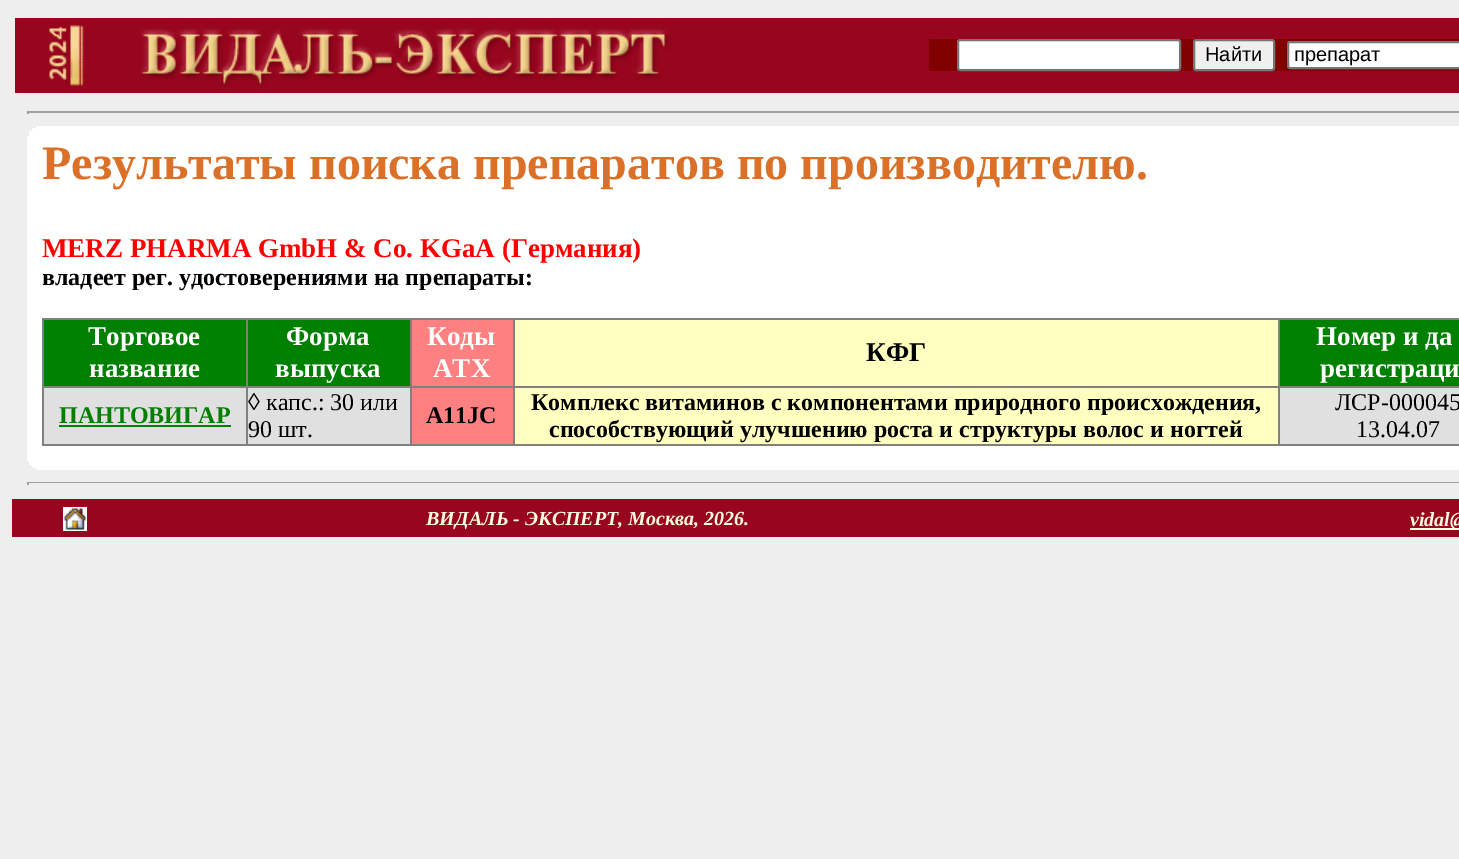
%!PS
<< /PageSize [1459 859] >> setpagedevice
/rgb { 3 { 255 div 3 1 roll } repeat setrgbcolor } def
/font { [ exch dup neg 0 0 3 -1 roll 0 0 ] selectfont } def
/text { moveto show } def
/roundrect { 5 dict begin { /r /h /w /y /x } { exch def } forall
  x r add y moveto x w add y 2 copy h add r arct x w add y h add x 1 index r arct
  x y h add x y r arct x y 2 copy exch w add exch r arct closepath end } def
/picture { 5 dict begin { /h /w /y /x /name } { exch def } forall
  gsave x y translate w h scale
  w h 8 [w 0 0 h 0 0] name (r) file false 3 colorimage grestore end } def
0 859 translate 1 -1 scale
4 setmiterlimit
238 238 238 rgb
0 0 1459 859 rectfill
152 5 30 rgb
15 18 122 75 rectfill
(img_01.rgb) 137 18 536 75 picture
673 18 786 75 rectfill
(img_02.rgb) 49 25 36 61 picture
128 0 0 rgb
929 39 530 32 rectfill
255 255 255 rgb
958 40 222 30 2 roundrect gsave fill grestore
118 118 118 rgb
2 setlinewidth
stroke
239 239 239 rgb
1194 40 80 30 2 roundrect gsave fill grestore
118 118 118 rgb
stroke
255 255 255 rgb
1288 42 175 26 2 roundrect gsave fill grestore
118 118 118 rgb
stroke
159 159 159 rgb
27 111 1432 2 rectfill
27 111 2 3 rectfill
255 255 255 rgb
36 126 1423 2 rectfill
27 128 1432 8 rectfill
238 238 238 rgb
27 128 6 1 rectfill
27 129 5 2 rectfill
27 131 3 1 rectfill
27 132 2 4 rectfill
255 255 255 rgb
27 136 1432 332 rectfill
128 128 128 rgb
42 318 1417 2 rectfill
42 444 1417 2 rectfill
42 318 2 128 rectfill
0 128 0 rgb
44 320 1415 66 rectfill
128 128 128 rgb
1278 386 181 2 rectfill
224 224 224 rgb
44 388 1415 56 rectfill
128 128 128 rgb
1278 386 2 60 rectfill
513 386 767 2 rectfill
513 386 2 60 rectfill
410 386 105 2 rectfill
410 386 2 60 rectfill
246 386 165 2 rectfill
246 386 2 60 rectfill
42 386 206 2 rectfill
246 318 2 69 rectfill
255 128 128 rgb
412 320 101 66 rectfill
128 128 128 rgb
410 318 2 69 rectfill
255 255 192 rgb
515 320 763 66 rectfill
128 128 128 rgb
513 318 2 69 rectfill
1278 318 2 69 rectfill
0 128 0 rgb
59 425 172 2 rectfill
255 128 128 rgb
412 388 101 56 rectfill
255 255 192 rgb
515 388 763 56 rectfill
238 238 238 rgb
27 461 2 3 rectfill
27 464 3 1 rectfill
27 465 5 2 rectfill
27 467 6 1 rectfill
255 255 255 rgb
36 468 1423 2 rectfill
159 159 159 rgb
27 482 1432 1 rectfill
27 482 2 3 rectfill
152 5 30 rgb
12 499 1447 38 rectfill
(img_03.rgb) 63 507 24 24 picture
255 255 224 rgb
1410 528 49 2 rectfill
/LiberationSans-Regular 20 font
0 0 0 rgb
(Найти) 1205 61 text
(препарат) 1294 61 text
/LiberationSerif-Bold 48 font
219 112 40 rgb
(Результаты поиска препаратов по производителю.) 42 179 text
/LiberationSerif-Bold 27 font
255 0 0 rgb
(MERZ PHARMA GmbH & Co. KGaA \(Германия\)) 42 257 text
/LiberationSerif-Bold 24 font
0 0 0 rgb
(владеет рег. удостоверениями на препараты:) 42 285 text
/LiberationSerif-Bold 27 font
255 255 255 rgb
(Торговое) 88 345 text
(название) 89 377 text
(Форма) 286 345 text
(выпуска) 275 377 text
(Коды) 427 345 text
(АТХ) 433 377 text
0 0 0 rgb
(КФГ) 866 361 text
255 255 255 rgb
(Номер и да) 1316 345 text
(регистраци) 1320 377 text
/LiberationSerif-Bold 24 font
0 128 0 rgb
(ПАНТОВИГАР) 59 423 text
/LiberationSerif-Regular 24 font
0 0 0 rgb
(◊ капс.: 30 или) 248 410 text
(90 шт.) 248 437 text
/LiberationSerif-Bold 24 font
(A11JC) 426 423 text
(Комплекс витаминов с компонентами природного происхождения,) 531 410 text
(способствующий улучшению роста и структуры волос и ногтей) 549 437 text
/LiberationSerif-Regular 24 font
(ЛСР-000045) 1335 410 text
(13.04.07) 1356 437 text
/LiberationSerif-BoldItalic 20 font
255 255 224 rgb
(ВИДАЛЬ - ЭКСПЕРТ, Москва, 2026.) 426 525 text
(vidal@) 1410 526 text
showpage
